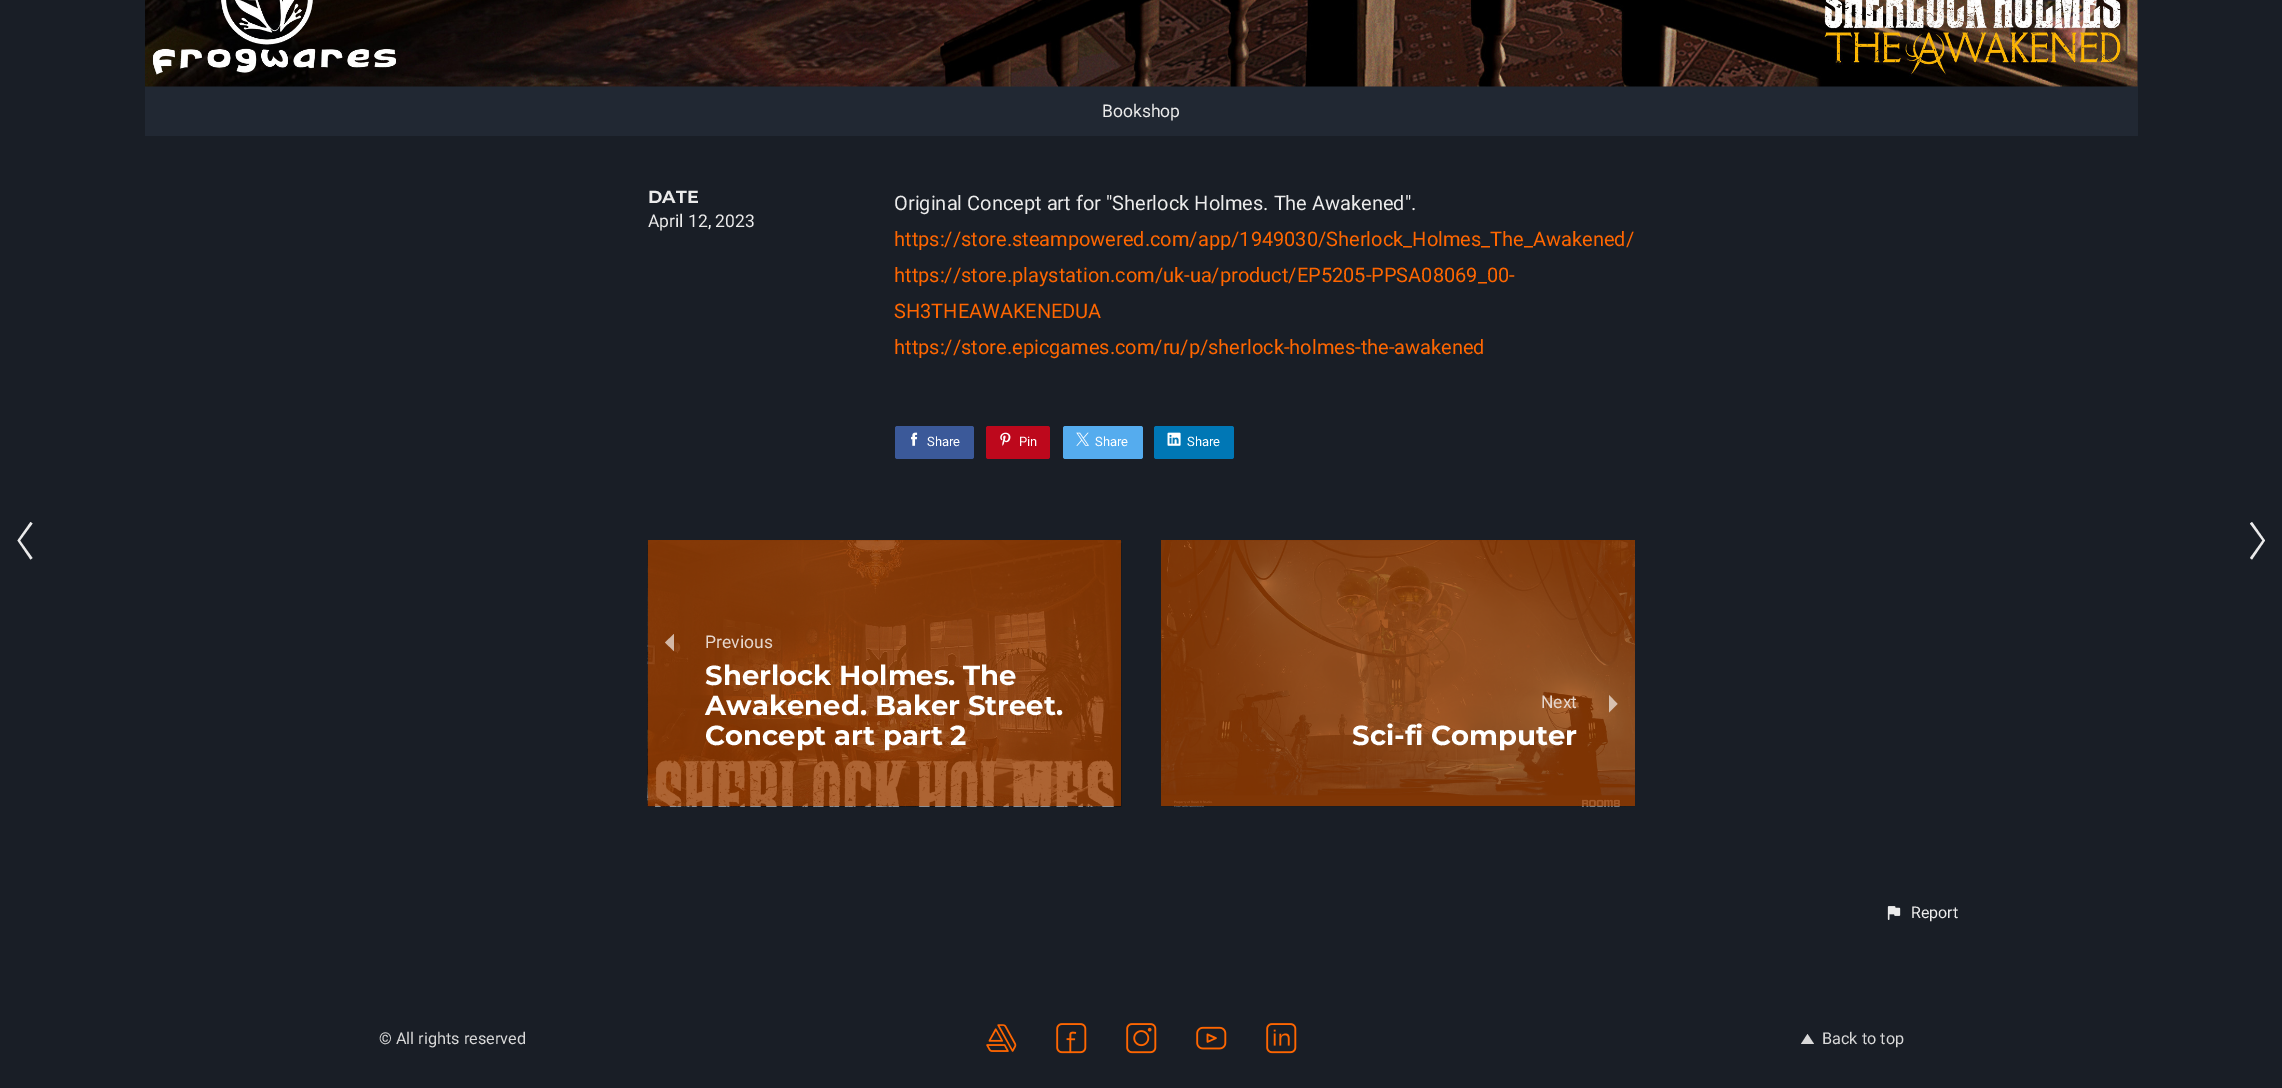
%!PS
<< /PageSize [2282 1088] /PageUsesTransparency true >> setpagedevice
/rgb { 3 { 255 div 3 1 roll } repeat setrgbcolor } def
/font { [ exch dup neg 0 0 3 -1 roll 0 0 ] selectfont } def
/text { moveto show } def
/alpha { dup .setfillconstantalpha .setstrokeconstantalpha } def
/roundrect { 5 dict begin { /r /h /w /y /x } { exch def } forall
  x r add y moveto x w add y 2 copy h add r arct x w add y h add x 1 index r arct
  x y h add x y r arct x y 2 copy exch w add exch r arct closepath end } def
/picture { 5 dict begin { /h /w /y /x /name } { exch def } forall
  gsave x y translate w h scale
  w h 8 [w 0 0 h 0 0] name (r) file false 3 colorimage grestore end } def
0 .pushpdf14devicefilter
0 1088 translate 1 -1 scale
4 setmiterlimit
25 30 38 rgb
0 0 2282 1088 rectfill
235 235 235 rgb
30.5 559.5 moveto 2 -1.5 rlineto -12.5 -17.5 rlineto 12.5 -17 rlineto -2 -1.5 rlineto -13 18.5 rlineto closepath fill
33 40 51 rgb
145 86 1993 50 rectfill
(img_01.rgb) 145 0 1993 87 picture
59 89 153 rgb
895 426 79 33 2.5 roundrect fill
(img_02.rgb) 911 432 7 14 picture
189 8 28 rgb
986 426 64 33 2.5 roundrect fill
(img_03.rgb) 1000 432 11 14 picture
85 172 238 rgb
1063 426 80 33 2.5 roundrect fill
(img_04.rgb) 1076 432 13 14 picture
0 119 181 rgb
1154 426 80 33 2.5 roundrect fill
(img_05.rgb) 1167 432 14 14 picture
(img_06.rgb) 647 540 475 267 picture
0.64 alpha
255 255 255 rgb
674 634 moveto 0 17 rlineto -9 -8.5 rlineto closepath fill
1 alpha
125 52 5 rgb
1161 540 474 266 rectfill
(img_07.rgb) 1161 540 474 267 picture
0.64 alpha
255 255 255 rgb
1609 712.5 moveto 0 -17.5 rlineto 8.5 9 rlineto closepath fill
1 alpha
235 235 235 rgb
2252 559.5 moveto -2 -1.5 rlineto 12.5 -17.5 rlineto -12.5 -17 rlineto 2 -1.5 rlineto 13 18.5 rlineto closepath fill
(img_08.rgb) 1887 906 14 14 picture
(img_09.rgb) 986 1024 31 28 picture
(img_10.rgb) 1056 1023 31 31 picture
(img_11.rgb) 1126 1023 31 31 picture
(img_12.rgb) 1196 1026 31 24 picture
(img_13.rgb) 1266 1023 31 31 picture
217 217 217 rgb
1814 1044 moveto -13 0 rlineto 6.5 -10 rlineto closepath fill
/Roboto-Regular 17.5 font
235 235 235 rgb
(Bookshop) 1102 117 text
/Montserrat-Bold 17.5 font
(DATE) 648 203 text
/Roboto-Regular 17.5 font
(April 12, 2023) 648 227 text
/Roboto-Regular 20 font
(Original Concept art for "Sherlock Holmes. The Awakened".) 894 210 text
255 102 0 rgb
(https://store.steampowered.com/app/1949030/Sherlock_Holmes_The_Awakened/) 894 246 text
(https://store.playstation.com/uk-ua/product/EP5205-PPSA08069_00-) 894 282 text
(SH3THEAWAKENEDUA) 894 318 text
(https://store.epicgames.com/ru/p/sherlock-holmes-the-awakened) 894 354 text
/Roboto-Regular 13 font
255 255 255 rgb
(Share) 927 446 text
(Pin) 1019 446 text
(Share) 1095 446 text
(Share) 1187 446 text
/Roboto-Regular 17.5 font
230 215 206 rgb
(Previous) 705 648 text
/Montserrat-Bold 27.5 font
255 255 255 rgb
(Sherlock Holmes. The) 705 685 text
(Awakened. Baker Street.) 705 715 text
(Concept art part 2) 705 745 text
/Roboto-Regular 17.5 font
230 215 206 rgb
(Next) 1541 708 text
/Montserrat-Bold 27.5 font
255 255 255 rgb
(Sci-fi Computer) 1352 745 text
/Roboto-Regular 16 font
235 235 235 rgb
(Report) 1911 918 text
/Roboto-Regular 16.25 font
217 217 217 rgb
(© All rights reserved) 379 1044 text
(Back to top) 1822 1044 text
.poppdf14devicefilter showpage
